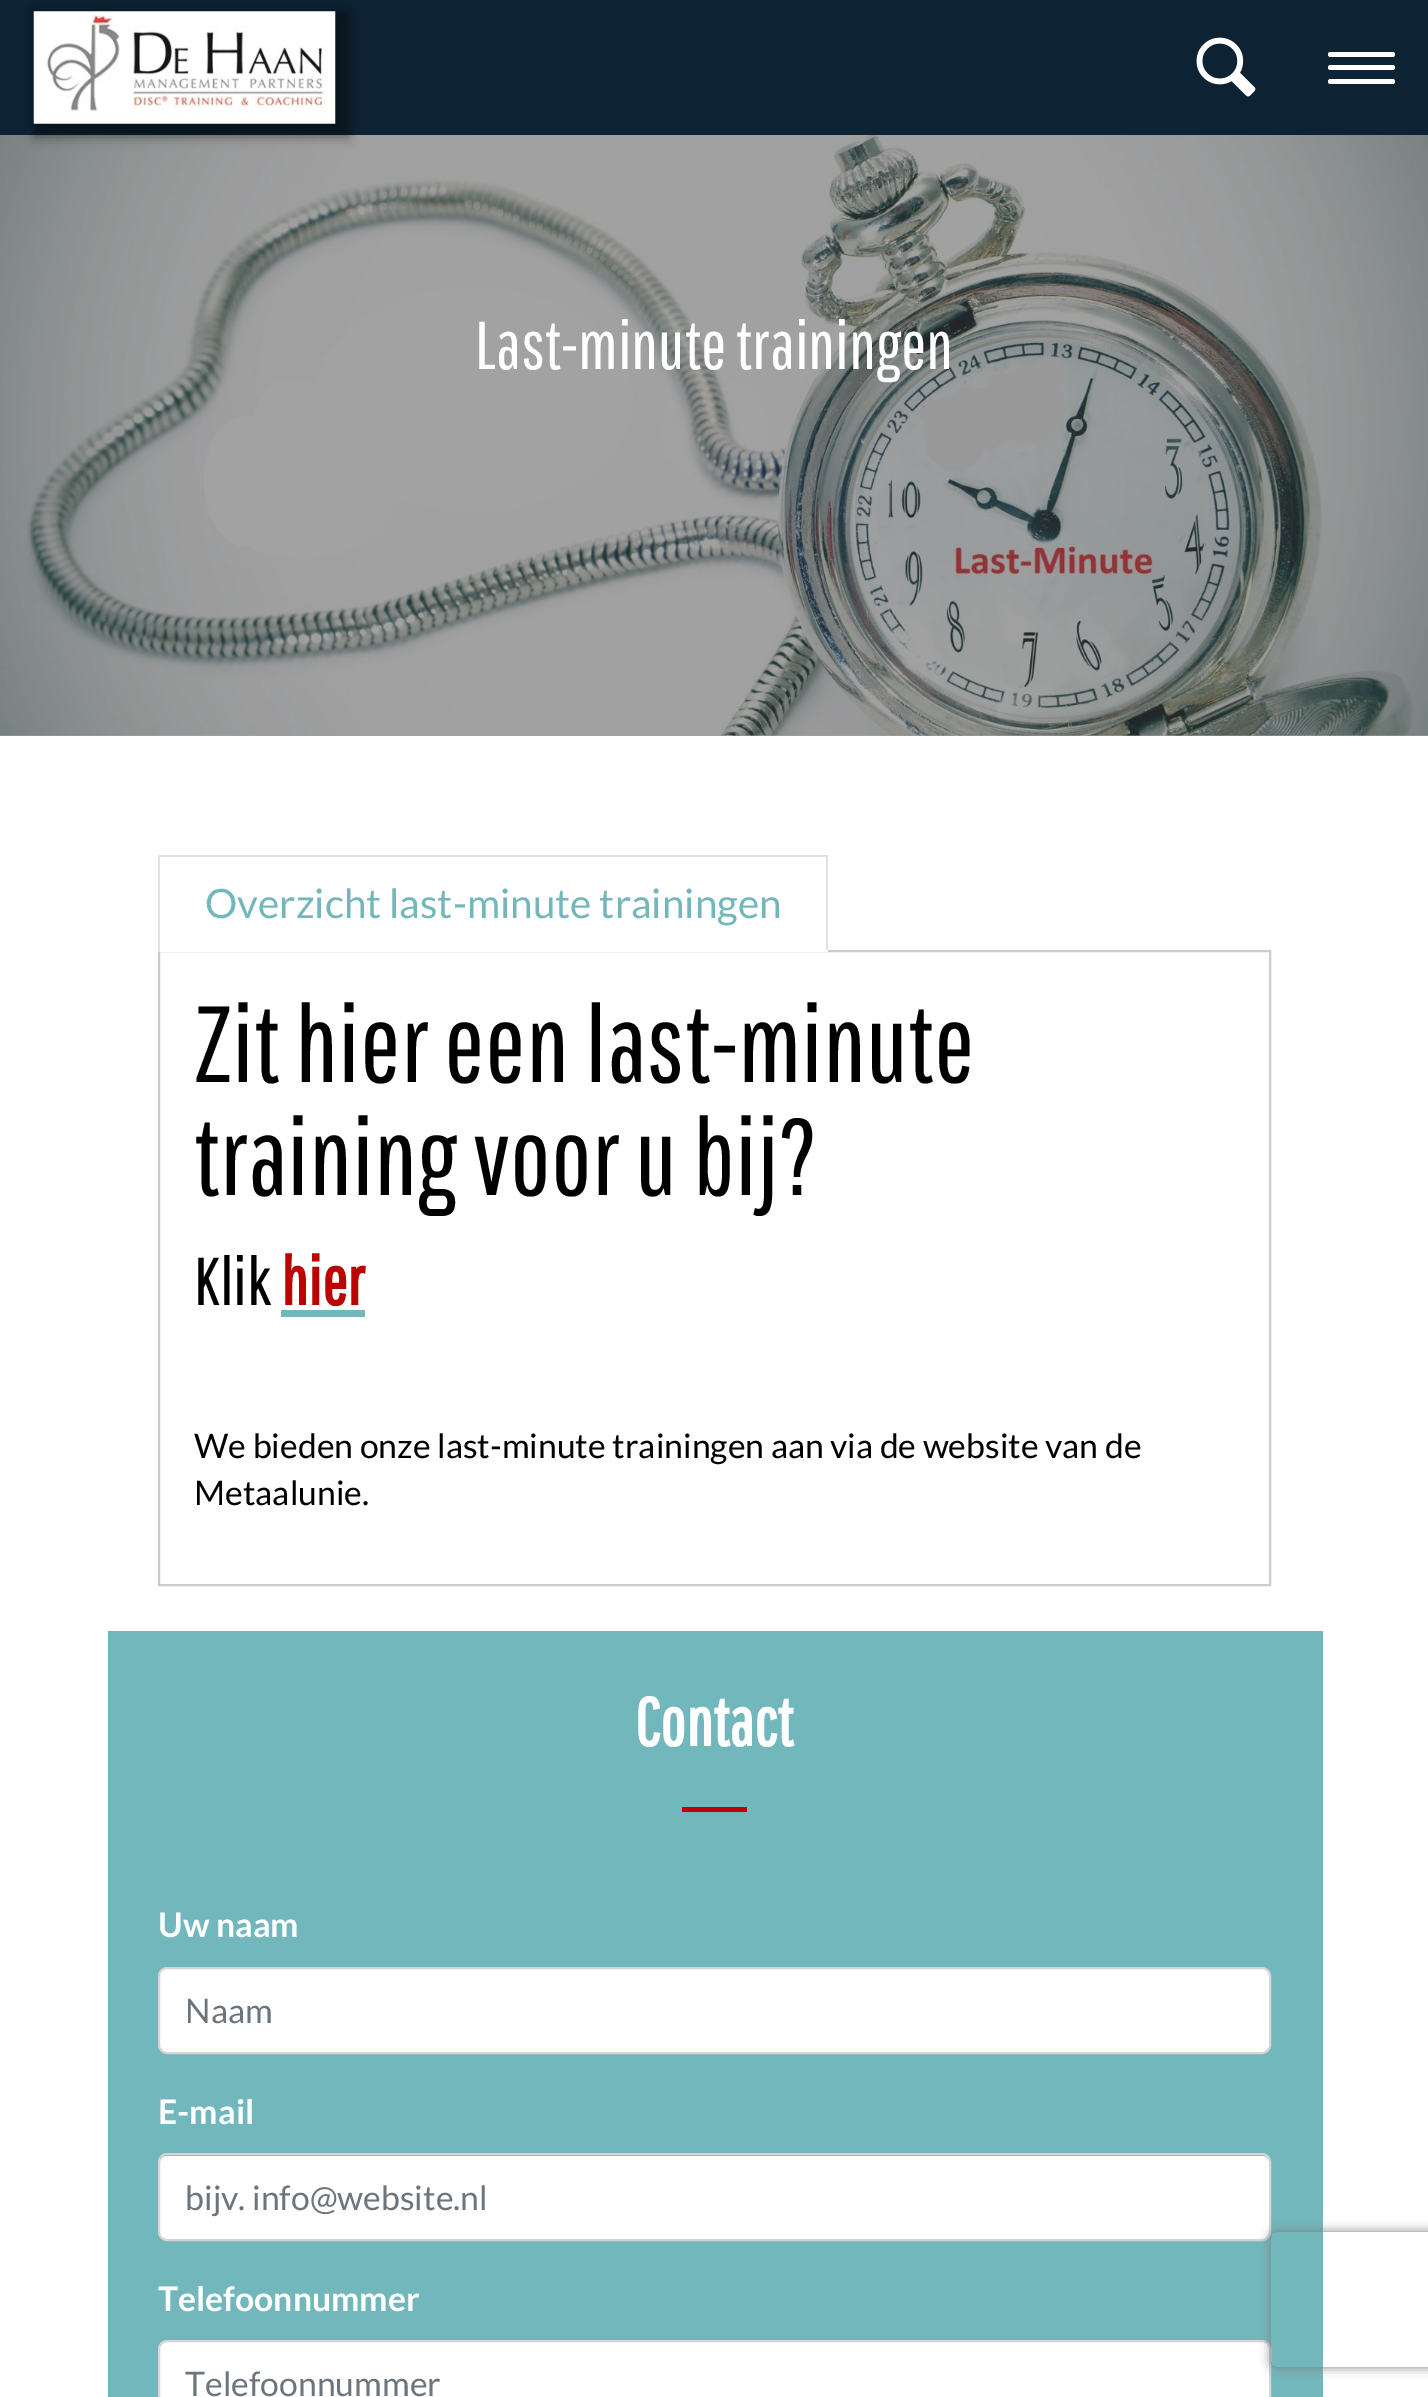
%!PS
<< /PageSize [1428 2397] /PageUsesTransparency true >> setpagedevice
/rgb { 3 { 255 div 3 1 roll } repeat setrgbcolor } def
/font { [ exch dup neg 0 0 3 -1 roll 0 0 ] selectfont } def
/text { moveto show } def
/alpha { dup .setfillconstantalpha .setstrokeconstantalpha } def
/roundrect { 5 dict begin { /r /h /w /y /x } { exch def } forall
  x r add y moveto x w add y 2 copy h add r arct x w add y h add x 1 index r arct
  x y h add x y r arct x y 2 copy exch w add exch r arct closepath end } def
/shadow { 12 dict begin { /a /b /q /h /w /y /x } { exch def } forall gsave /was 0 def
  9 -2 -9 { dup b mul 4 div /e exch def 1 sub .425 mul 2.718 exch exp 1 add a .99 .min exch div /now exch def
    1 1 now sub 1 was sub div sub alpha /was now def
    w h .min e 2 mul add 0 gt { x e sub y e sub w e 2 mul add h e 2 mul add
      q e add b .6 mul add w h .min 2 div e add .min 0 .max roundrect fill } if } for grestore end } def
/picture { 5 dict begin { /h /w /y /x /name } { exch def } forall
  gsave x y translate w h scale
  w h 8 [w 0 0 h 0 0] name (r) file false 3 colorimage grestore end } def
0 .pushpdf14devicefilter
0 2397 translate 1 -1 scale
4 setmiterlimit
255 255 255 rgb
0 0 1428 2397 rectfill
162 162 162 rgb
0 735 1428 1 rectfill
13 34 51 rgb
0 0 1428 135 rectfill
(img_03.rgb) 0 135 1428 601 picture
0 0 0 rgb
34 11 315 126 0 5.5 0.4 shadow
(img_01.rgb) 33 11 303 113 picture
(img_02.rgb) 1196 37 60 60 picture
255 255 255 rgb
1328 52 67 5 2.5 roundrect fill
1328 65 67 5 2.5 roundrect fill
1328 79 67 5 2.5 roundrect fill
222 226 230 rgb
158 855 670 2 rectfill
204 204 204 rgb
2 setlinewidth
159 951 1111 634 rectstroke
222 226 230 rgb
826 855 2 97 rectfill
255 255 255 rgb
158 950 670 2 rectfill
222 226 230 rgb
158 855 2 97 rectfill
114 183 188 rgb
281 1310 84 7 rectfill
108 1631 1215 766 rectfill
187 3 3 rgb
682 1807 65 5 rectfill
255 255 255 rgb
159 1968 1111 85 8 roundrect gsave fill grestore
213 213 213 rgb
stroke
255 255 255 rgb
160 2156 1109 83 7 roundrect fill
213 213 213 rgb
159 2154 1111 86 8 roundrect stroke
255 255 255 rgb
160 2342 1109 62 7 roundrect fill
213 213 213 rgb
159 2341 1111 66 8 roundrect stroke
gsave
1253 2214 moveto 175 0 rlineto 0 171 rlineto -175 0 rlineto closepath 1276 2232 moveto 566 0 rlineto 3 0 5 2 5 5 rcurveto 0 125 rlineto 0 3 -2 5 -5 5 rcurveto -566 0 rlineto -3 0 -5 -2 -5 -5 rcurveto 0 -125 rlineto 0 -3 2 -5 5 -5 rcurveto closepath eoclip newpath
128 128 128 rgb
1271 2232 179 135 5 5.5 1 shadow
grestore
/PathwayGothicOne-Regular 67.5 font
255 255 255 rgb
(Last-minute trainingen) 475 369 text
/Lato-Regular 40.5 font
114 183 188 rgb
(Overzicht last-minute trainingen) 205 918 text
/PathwayGothicOne-Regular 108 font
0 0 0 rgb
(Zit hier een last-minute) 194 1082 text
(training voor u bij?) 194 1195 text
/PathwayGothicOne-Regular 67.5 font
(Klik) 194 1305 text
/PathwayGothicOne-Bold 67.5 font
187 3 3 rgb
(hier) 281 1305 text
/Lato-Regular 33.75 font
0 0 0 rgb
(We bieden onze last-minute trainingen aan via de website van de) 194 1458 text
(Metaalunie.) 194 1505 text
/PathwayGothicOne-Bold 67.5 font
255 255 255 rgb
(Contact) 635 1746 text
/Lato-Bold 33.75 font
(Uw naam) 158 1937 text
/Lato-Regular 33.75 font
108 117 125 rgb
(Naam) 185 2023 text
/Lato-Bold 33.75 font
255 255 255 rgb
(E-mail) 158 2124 text
/Lato-Regular 33.75 font
108 117 125 rgb
(bijv. info@website.nl) 185 2210 text
/Lato-Bold 33.75 font
255 255 255 rgb
(Telefoonnummer) 158 2311 text
/Lato-Regular 33.75 font
108 117 125 rgb
(Telefoonnummer) 185 2396 text
.poppdf14devicefilter showpage
